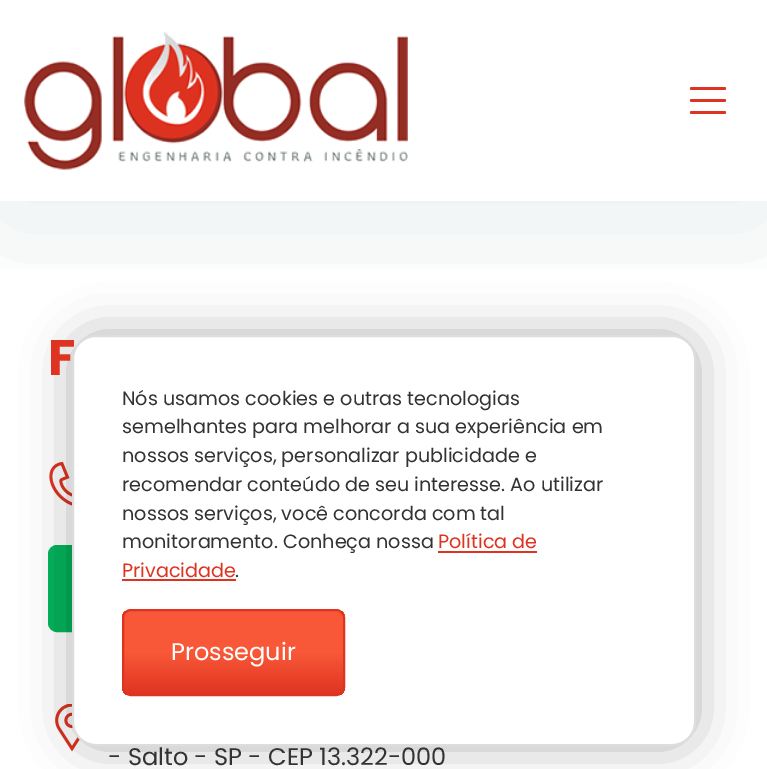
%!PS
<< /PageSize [767 769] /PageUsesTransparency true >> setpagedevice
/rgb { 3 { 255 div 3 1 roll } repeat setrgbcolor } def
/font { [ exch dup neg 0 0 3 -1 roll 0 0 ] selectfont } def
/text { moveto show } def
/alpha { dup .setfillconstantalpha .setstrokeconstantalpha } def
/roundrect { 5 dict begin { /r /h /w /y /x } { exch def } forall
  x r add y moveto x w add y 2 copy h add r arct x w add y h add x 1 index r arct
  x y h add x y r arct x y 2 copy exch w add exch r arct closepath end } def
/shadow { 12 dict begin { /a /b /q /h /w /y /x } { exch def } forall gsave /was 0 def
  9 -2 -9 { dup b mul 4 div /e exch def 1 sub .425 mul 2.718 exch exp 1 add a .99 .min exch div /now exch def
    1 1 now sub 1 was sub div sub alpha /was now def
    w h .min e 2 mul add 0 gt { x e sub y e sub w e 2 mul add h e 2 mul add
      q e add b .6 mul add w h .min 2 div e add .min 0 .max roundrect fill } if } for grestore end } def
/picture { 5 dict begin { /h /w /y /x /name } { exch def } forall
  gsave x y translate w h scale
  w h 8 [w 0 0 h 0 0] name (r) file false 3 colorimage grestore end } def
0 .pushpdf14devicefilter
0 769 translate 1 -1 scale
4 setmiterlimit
255 255 255 rgb
0 0 767 769 rectfill
gsave
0 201 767 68 rectclip
20 76 92 rgb
0 18 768 201 0 60 0.1 shadow
grestore
(img_01.rgb) 24 31 384 139 picture
222 51 33 rgb
690 87 36 3 1.5 roundrect fill
690 99 36 3 1.5 roundrect fill
690 111 36 3 1.5 roundrect fill
(img_02.rgb) 49 461 23 45 picture
3 179 91 rgb
49 546 414 85 8 roundrect gsave fill grestore
2 setlinewidth
stroke
(img_03.rgb) 55 704 25 48 picture
0 0 0 rgb
72 335 624 411 24 24 0.3 shadow
/Poppins-Bold 50 font
222 51 33 rgb
(F) 48 375 text
/Poppins-Regular 24 font
51 51 51 rgb
(- Salto - SP - CEP 13.322-000) 108 765 text
255 255 255 rgb
73 336 622 409 23 roundrect gsave fill grestore
221 221 221 rgb
stroke
/Poppins-Regular 19.2 font
51 51 51 rgb
(Nós usamos cookies e outras tecnologias) 122 405 text
(semelhantes para melhorar a sua experiência em) 122 433 text
(nossos serviços, personalizar publicidade e) 122 462 text
(recomendar conteúdo de seu interesse. Ao utilizar) 122 491 text
(nossos serviços, você concorda com tal) 122 520 text
(monitoramento. Conheça nossa) 122 548 text
222 51 33 rgb
(Política de) 438 548 text
438 551 99 2 rectfill
(Privacidade) 122 577 text
122 579 114 2 rectfill
51 51 51 rgb
(.) 235 577 text
gsave
122 609 223 87 9 roundrect clip newpath
gsave 122 611 moveto 223 0 rlineto 0 84 rlineto -223 0 rlineto closepath clip newpath
<< /ShadingType 2 /ColorSpace /DeviceRGB /Coords [233 695 233 611] /Extend [true true] /Function << /FunctionType 3 /Domain [0 1] /Functions [<< /FunctionType 2 /Domain [0 1] /C0 [0.871 0.2 0.129] /C1 [0.973 0.345 0.216] /N 1 >> << /FunctionType 2 /Domain [0 1] /C0 [0.973 0.345 0.216] /C1 [0.973 0.345 0.216] /N 1 >>] /Bounds [0.5] /Encode [0 1 0 1] >> >> shfill grestore
grestore
222 51 33 rgb
123 610 221 85 8 roundrect stroke
/Poppins-Regular 24 font
255 255 255 rgb
(Prosseguir) 171 660 text
.poppdf14devicefilter showpage
